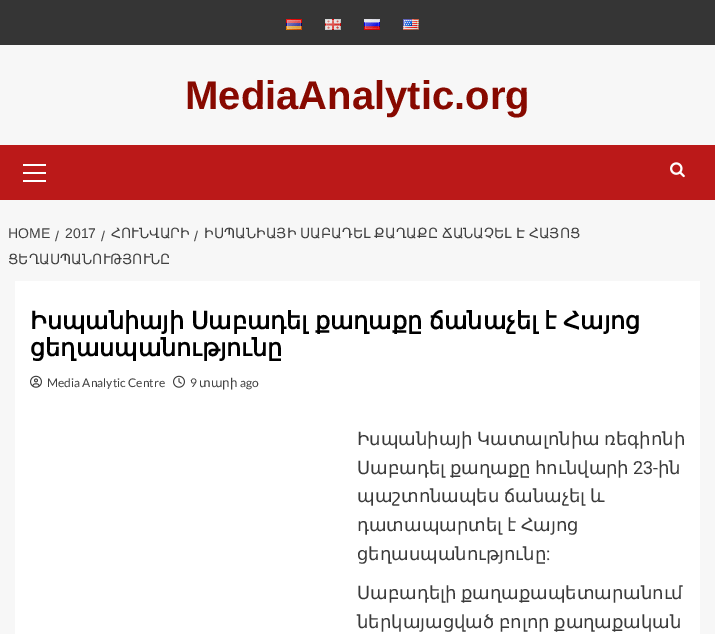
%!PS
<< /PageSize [715 634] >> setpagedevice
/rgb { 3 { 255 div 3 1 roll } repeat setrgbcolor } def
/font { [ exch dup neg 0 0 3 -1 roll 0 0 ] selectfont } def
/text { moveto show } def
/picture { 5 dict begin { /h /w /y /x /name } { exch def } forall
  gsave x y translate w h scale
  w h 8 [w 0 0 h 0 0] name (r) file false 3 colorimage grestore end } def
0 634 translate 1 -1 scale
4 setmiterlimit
247 247 247 rgb
0 0 715 634 rectfill
53 53 53 rgb
0 0 715 45 rectfill
(img_01.rgb) 286 19 16 11 picture
(img_02.rgb) 325 19 16 11 picture
(img_03.rgb) 364 19 16 11 picture
(img_04.rgb) 403 19 16 11 picture
187 25 25 rgb
0 145 715 55 rectfill
255 255 255 rgb
23 172 23 2 rectfill
23 164 23 2 rectfill
23 180 23 2 rectfill
(img_05.rgb) 670 162 15 16 picture
15 281 685 353 rectfill
(img_06.rgb) 30 375 12 13 picture
(img_07.rgb) 173 375 12 13 picture
/LiberationSans-Bold 40 font
135 9 0 rgb
(MediaAnalytic.org) 185 109 text
/LiberationSans-Regular 14 font
64 64 64 rgb
(/) 194 241 text
/DejaVuSans-Regular 14 font
204 238 moveto -0.5 0 32 (ԻՍՊԱՆԻԱՅԻ ՍԱԲԱԴԵԼ ՔԱՂԱՔԸ ՃԱՆԱՉԵԼ Է ՀԱՅՈՑ) widthshow
(ՑԵՂԱՍՊԱՆՈՒԹՅՈՒՆԸ) 8 264 text
/LiberationSans-Regular 14 font
(HOME) 8 238 text
(/) 55 241 text
(2017) 65 238 text
(/) 101 241 text
/DejaVuSans-Regular 14 font
(ՀՈՒՆՎԱՐԻ) 111 238 text
/DejaVuSans-Bold 24 font
0 0 0 rgb
30 329 moveto -1 0 32 (Իսպանիայի Սաբադել քաղաքը ճանաչել է Հայոց) widthshow
(ցեղասպանությունը) 30 356 text
/Lato-Regular 12 font
64 64 64 rgb
(Media Analytic Centre) 47 387 text
(9) 190 387 text
/DejaVuSans-Regular 12 font
(տարի) 199 387 text
/Lato-Regular 12 font
(ago) 240 387 text
/DejaVuSans-Regular 18 font
58 58 58 rgb
357 445 moveto -1 0 32 (Իսպանիայի Կատալոնիա ռեգիոնի) widthshow
357 474 moveto -1 0 32 (Սաբադել քաղաքը հունվարի) widthshow
/Roboto-Regular 18 font
(23-) 633 474 text
/DejaVuSans-Regular 18 font
(ին) 658 474 text
357 502 moveto -1 0 32 (պաշտոնապես ճանաչել և) widthshow
357 531 moveto -1 0 32 (դատապարտել է Հայոց) widthshow
(ցեղասպանությունը) 357 560 text
/Roboto-Regular 18 font
(:) 546 560 text
/DejaVuSans-Regular 18 font
357 599 moveto -1 0 32 (Սաբադելի քաղաքապետարանում) widthshow
357 628 moveto -1 0 32 (ներկայացված բոլոր քաղաքական) widthshow
showpage
